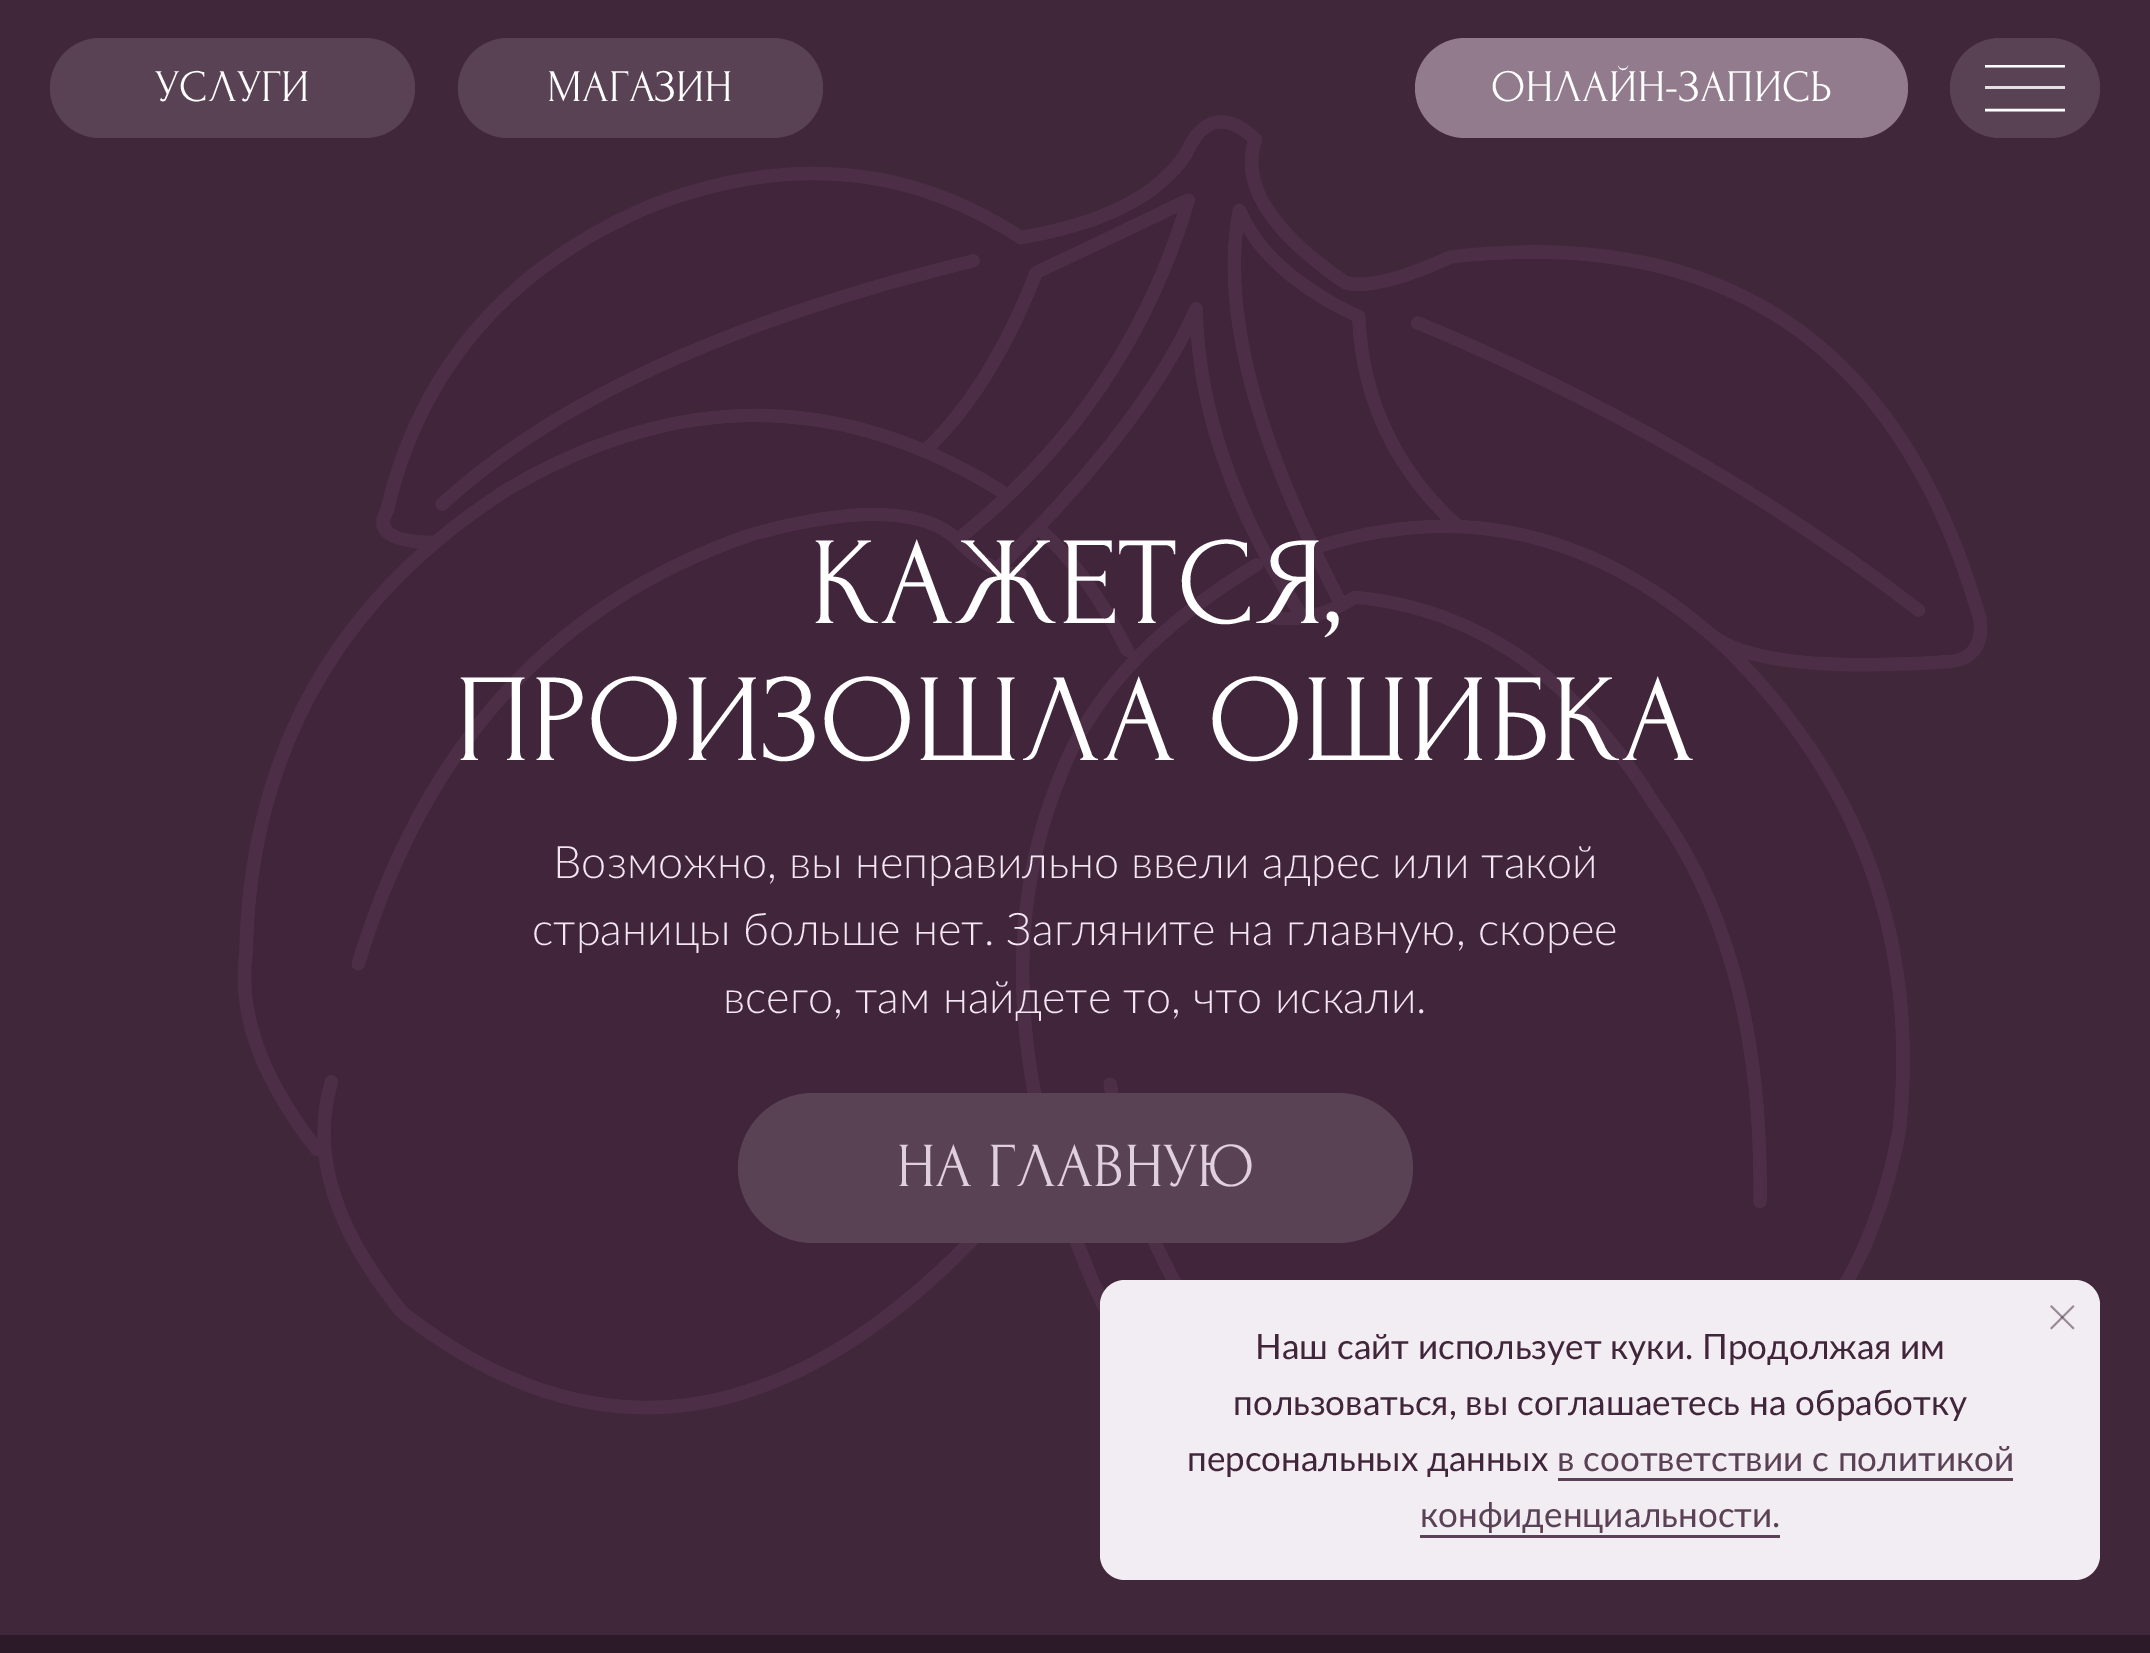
%!PS
<< /PageSize [2150 1653] >> setpagedevice
/rgb { 3 { 255 div 3 1 roll } repeat setrgbcolor } def
/font { [ exch dup neg 0 0 3 -1 roll 0 0 ] selectfont } def
/text { moveto show } def
/roundrect { 5 dict begin { /r /h /w /y /x } { exch def } forall
  x r add y moveto x w add y 2 copy h add r arct x w add y h add x 1 index r arct
  x y h add x y r arct x y 2 copy exch w add exch r arct closepath end } def
/picture { 5 dict begin { /h /w /y /x /name } { exch def } forall
  gsave x y translate w h scale
  w h 8 [w 0 0 h 0 0] name (r) file false 3 colorimage grestore end } def
0 1653 translate 1 -1 scale
4 setmiterlimit
45 26 41 rgb
0 0 2150 1653 rectfill
64 39 57 rgb
0 0 2150 1635 rectfill
(img_02.rgb) 238 115 1749 1300 picture
145 123 140 rgb
1415 38 493 100 50 roundrect fill
90 66 85 rgb
1950 38 150 100 50 roundrect fill
50 38 365 100 50 roundrect fill
458 38 365 100 50 roundrect fill
gsave
1985 65 80 48 rectclip
255 255 255 rgb
2.5 setlinewidth
1985 66 moveto 80 0 rlineto stroke
grestore
228 224 227 rgb
1985 86 80 3 rectfill
255 255 255 rgb
2.5 setlinewidth
1985 110 moveto 80 0 rlineto stroke
242 237 242 rgb
1100 1280 1000 300 25 roundrect fill
(img_01.rgb) 2050 1305 25 25 picture
90 65 85 rgb
1558 1478 455 3 rectfill
1420 1535 360 3 rectfill
90 66 85 rgb
738 1093 675 150 75 roundrect fill
/Forum-Regular 45 font
255 255 255 rgb
(ОНЛАЙН-ЗАПИСЬ) 1491 101 text
(УСЛУГИ) 155 101 text
(МАГАЗИН) 547 101 text
/Lato-Regular 35 font
65 37 59 rgb
(Наш сайт использует куки. Продолжая им) 1255 1359 text
(пользоваться, вы соглашаетесь на обработку) 1233 1415 text
(персональных данных) 1187 1471 text
90 65 85 rgb
(в соответствии с политикой) 1557 1471 text
(конфиденциальности.) 1420 1527 text
/Forum-Regular 125 font
255 255 255 rgb
(КАЖЕТСЯ,) 810 623 text
(ПРОИЗОШЛА ОШИБКА) 455 760 text
/Lato-Light 45 font
243 229 242 rgb
(Возможно, вы неправильно ввели адрес или такой) 553 878 text
(страницы больше нет. Загляните на главную, скорее) 532 945 text
(всего, там найдете то, что искали.) 723 1013 text
/Forum-Regular 62.5 font
224 207 223 rgb
(НА ГЛАВНУЮ) 896 1186 text
showpage
